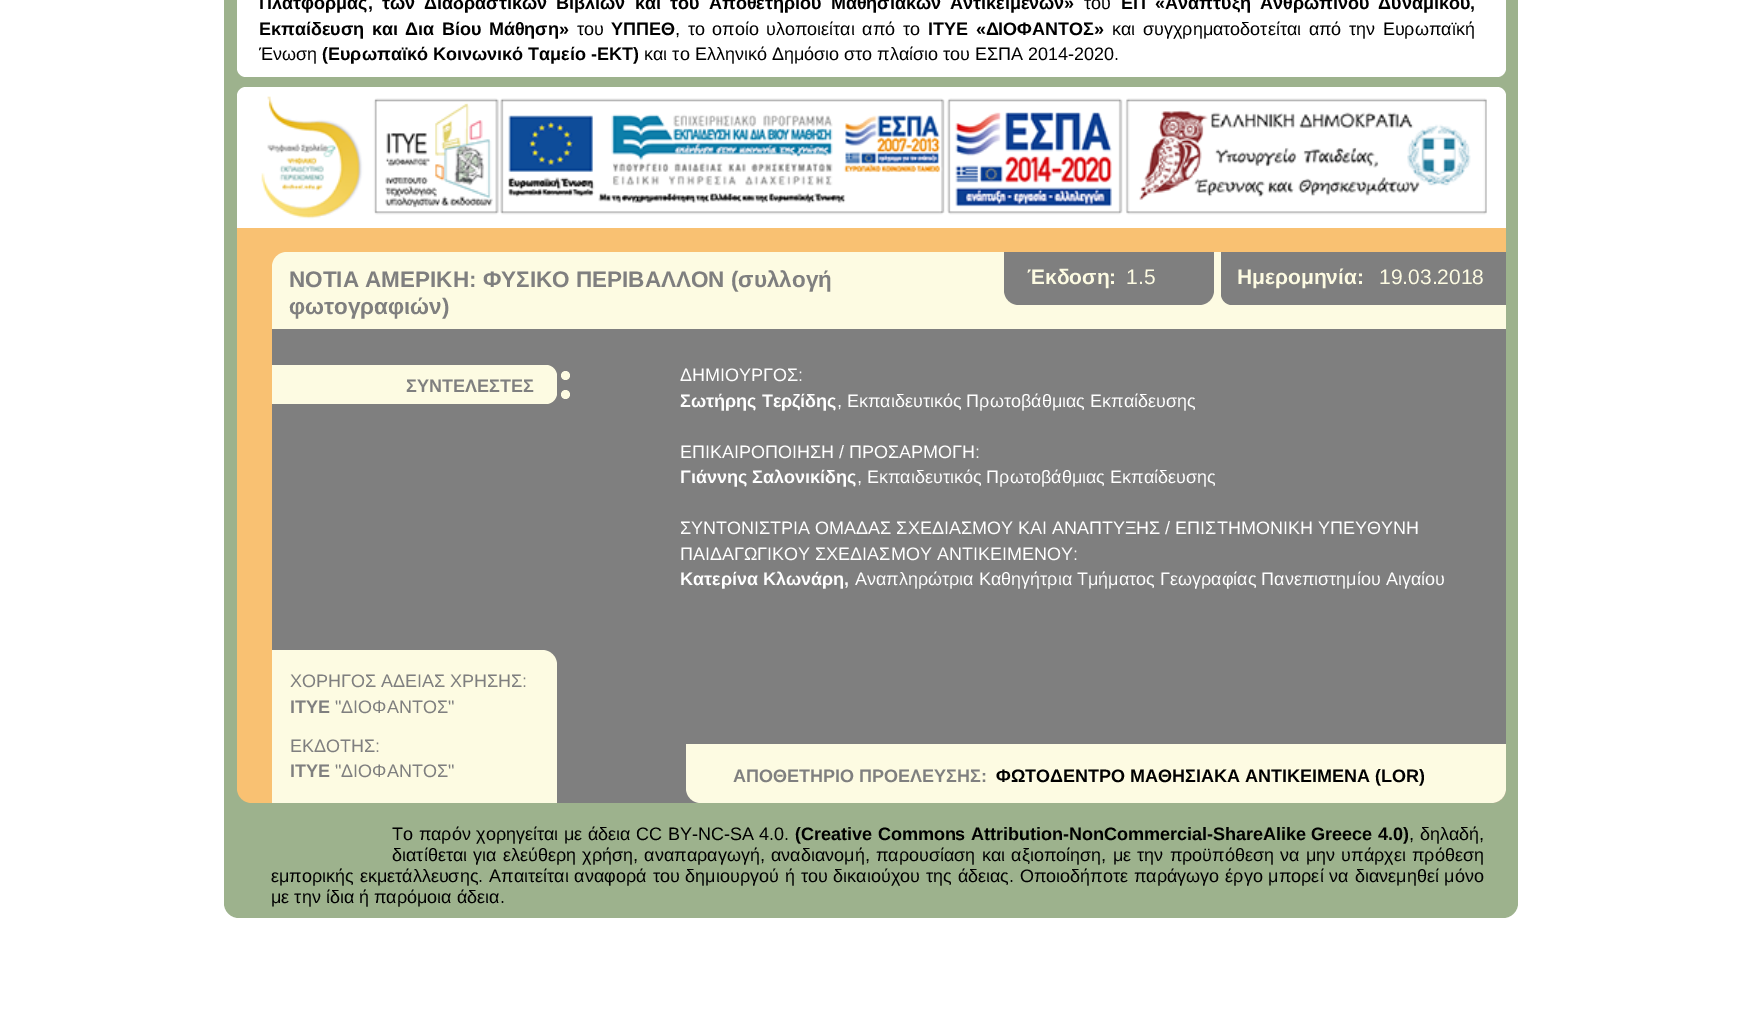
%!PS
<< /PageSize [1739 1012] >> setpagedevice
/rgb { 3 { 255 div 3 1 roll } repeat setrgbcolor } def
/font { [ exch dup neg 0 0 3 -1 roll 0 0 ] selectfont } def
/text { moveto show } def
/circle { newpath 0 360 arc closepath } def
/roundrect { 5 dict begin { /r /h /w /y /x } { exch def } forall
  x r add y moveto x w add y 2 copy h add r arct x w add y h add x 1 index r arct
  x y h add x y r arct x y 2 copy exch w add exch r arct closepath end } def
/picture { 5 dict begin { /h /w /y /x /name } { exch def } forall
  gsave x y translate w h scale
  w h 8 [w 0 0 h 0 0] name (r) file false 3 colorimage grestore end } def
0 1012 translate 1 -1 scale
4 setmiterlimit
255 255 255 rgb
0 0 1739 1012 rectfill
157 178 141 rgb
224 -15 1294 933 15 roundrect fill
255 255 255 rgb
237 -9 1269 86 9 roundrect fill
246 87 moveto 1251 0 rlineto 5 0 9 4 9 9 rcurveto 0 132 rlineto -1269 0 rlineto 0 -132 rlineto 0 -5 4 -9 9 -9 rcurveto closepath fill
(img_01.rgb) 261 96 1226 123 picture
249 193 114 rgb
237 228 moveto 1269 0 rlineto 0 560 rlineto 0 8.5 -6.5 15 -15 15 rcurveto -1239 0 rlineto -8.5 0 -15 -6.5 -15 -15 rcurveto closepath fill
253 251 226 rgb
287 252 moveto 1219 0 rlineto 0 77 rlineto -1234 0 rlineto 0 -62 rlineto 0 -8.5 6.5 -15 15 -15 rcurveto closepath fill
127 127 127 rgb
1004 252 moveto 210 0 rlineto 0 38 rlineto 0 8.5 -6.5 15 -15 15 rcurveto -180 0 rlineto -8.5 0 -15 -6.5 -15 -15 rcurveto closepath fill
1221 252 moveto 285 0 rlineto 0 53 rlineto -274 0 rlineto -6 0 -11 -5 -11 -11 rcurveto closepath fill
272 329 moveto 1234 0 rlineto 0 459 rlineto 0 8.5 -6.5 15 -15 15 rcurveto -1204 0 rlineto -8.5 0 -15 -6.5 -15 -15 rcurveto closepath fill
253 251 226 rgb
565.5 375.5 4.5 circle fill
272 365 moveto 274 0 rlineto 6 0 11 5 11 11 rcurveto 0 17 rlineto 0 6 -5 11 -11 11 rcurveto -274 0 rlineto closepath fill
565.5 394.5 4.5 circle fill
272 650 moveto 270 0 rlineto 8.5 0 15 6.5 15 15 rcurveto 0 138 rlineto -285 0 rlineto closepath fill
686 744 moveto 820 0 rlineto 0 44 rlineto 0 8.5 -6.5 15 -15 15 rcurveto -790 0 rlineto -8.5 0 -15 -6.5 -15 -15 rcurveto closepath fill
/LiberationSans-Bold 18 font
0 0 0 rgb
259 9 moveto 4.25 0 32 (Πλατφόρμας, των Διαδραστικών Βιβλίων και του Αποθετηρίου Μαθησιακών Αντικειμένων») widthshow
/LiberationSans-Regular 18 font
(του) 1084 9 text
/LiberationSans-Bold 18 font
1121 9 moveto 4.25 0 32 (ΕΠ «Ανάπτυξη Ανθρώπινου Δυναμικού,) widthshow
259 35 moveto 2.5 0 32 (Εκπαίδευση και Δια Βίου Μάθηση») widthshow
/LiberationSans-Regular 18 font
(του) 577 35 text
/LiberationSans-Bold 18 font
(ΥΠΠΕΘ) 611 35 text
/LiberationSans-Regular 18 font
675 35 moveto 2.5 0 32 (, το οποίο υλοποιείται από το) widthshow
/LiberationSans-Bold 18 font
928 35 moveto 2.5 0 32 (ΙΤΥΕ «ΔΙΟΦΑΝΤΟΣ») widthshow
/LiberationSans-Regular 18 font
1112 35 moveto 2.5 0 32 (και συγχρηματοδοτείται από την Ευρωπαϊκή) widthshow
(Ένωση) 259 60 text
/LiberationSans-Bold 18 font
(\(Ευρωπαϊκό Κοινωνικό Ταμείο -ΕΚΤ\)) 322 60 text
/LiberationSans-Regular 18 font
(και το Ελληνικό Δημόσιο στο πλαίσιο του ΕΣΠΑ 2014-2020.) 644 60 text
/LiberationSans-Bold 22.5 font
127 127 127 rgb
(ΝΟΤΙΑ ΑΜΕΡΙΚΗ: ΦΥΣΙΚΟ ΠΕΡΙΒΑΛΛΟΝ \(συλλογή) 289 287 text
(φωτογραφιών\)) 289 314 text
/LiberationSans-Bold 21 font
253 251 226 rgb
(Έκδοση:) 1027 284 text
/LiberationSans-Regular 21 font
(1.5) 1126 284 text
/LiberationSans-Bold 21 font
(Ημερομηνία:) 1237 284 text
/LiberationSans-Regular 21 font
(19.03.2018) 1379 284 text
/LiberationSans-Regular 18 font
255 255 255 rgb
(ΔΗΜΙΟΥΡΓΟΣ:) 680 381 text
/LiberationSans-Bold 18 font
(Σωτήρης Τερζίδης) 680 407 text
/LiberationSans-Regular 18 font
(, Εκπαιδευτικός Πρωτοβάθμιας Εκπαίδευσης) 837 407 text
(ΕΠΙΚΑΙΡΟΠΟΙΗΣΗ / ΠΡΟΣΑΡΜΟΓΗ:) 680 458 text
/LiberationSans-Bold 18 font
(Γιάννης Σαλονικίδης) 680 483 text
/LiberationSans-Regular 18 font
(, Εκπαιδευτικός Πρωτοβάθμιας Εκπαίδευσης) 857 483 text
(ΣΥΝΤΟΝΙΣΤΡΙΑ ΟΜΑΔΑΣ ΣΧΕΔΙΑΣΜΟΥ ΚΑΙ ΑΝΑΠΤΥΞΗΣ / ΕΠΙΣΤΗΜΟΝΙΚΗ ΥΠΕΥΘΥΝΗ) 680 534 text
(ΠΑΙΔΑΓΩΓΙΚΟΥ ΣΧΕΔΙΑΣΜΟΥ ΑΝΤΙΚΕΙΜΕΝΟΥ:) 680 560 text
/LiberationSans-Bold 18 font
(Κατερίνα Κλωνάρη,) 680 585 text
/LiberationSans-Regular 18 font
(Αναπληρώτρια Καθηγήτρια Τμήματος Γεωγραφίας Πανεπιστημίου Αιγαίου) 855 585 text
/LiberationSans-Bold 18 font
127 127 127 rgb
(ΣΥΝΤΕΛΕΣΤΕΣ) 406 392 text
/LiberationSans-Regular 18 font
(ΧΟΡΗΓΟΣ ΑΔΕΙΑΣ ΧΡΗΣΗΣ:) 290 687 text
/LiberationSans-Bold 18 font
(ΙΤΥΕ) 290 713 text
/LiberationSans-Regular 18 font
("ΔΙΟΦΑΝΤΟΣ") 335 713 text
(ΕΚΔΟΤΗΣ:) 290 752 text
/LiberationSans-Bold 18 font
(ΙΤΥΕ) 290 777 text
/LiberationSans-Regular 18 font
("ΔΙΟΦΑΝΤΟΣ") 335 777 text
/LiberationSans-Bold 18 font
(ΑΠΟΘΕΤΗΡΙΟ ΠΡΟΕΛΕΥΣΗΣ:) 733 782 text
0 0 0 rgb
(ΦΩΤΟΔΕΝΤΡΟ ΜΑΘΗΣΙΑΚΑ ΑΝΤΙΚΕΙΜΕΝΑ \(LOR\)) 996 782 text
/LiberationSans-Regular 18 font
392 840 moveto 0.5 0 32 (Το παρόν χορηγείται με άδεια CC BY-NC-SA 4.0.) widthshow
/LiberationSans-Bold 18 font
795 840 moveto 0.5 0 32 (\(Creative Commons Attribution-NonCommercial-ShareAlike Greece 4.0\)) widthshow
/LiberationSans-Regular 18 font
1409 840 moveto 1 0 32 (, δηλαδή,) widthshow
392 861 moveto 1.25 0 32 (διατίθεται για ελεύθερη χρήση, αναπαραγωγή, αναδιανομή, παρουσίαση και αξιοποίηση, με την προϋπόθεση να μην υπάρχει πρόθεση) widthshow
271 882 moveto 0.9 0 32 (εμπορικής εκμετάλλευσης. Απαιτείται αναφορά του δημιουργού ή του δικαιούχου της άδειας. Οποιοδήποτε παράγωγο έργο μπορεί να διανεμηθεί μόνο) widthshow
(με την ίδια ή παρόμοια άδεια.) 271 903 text
showpage
